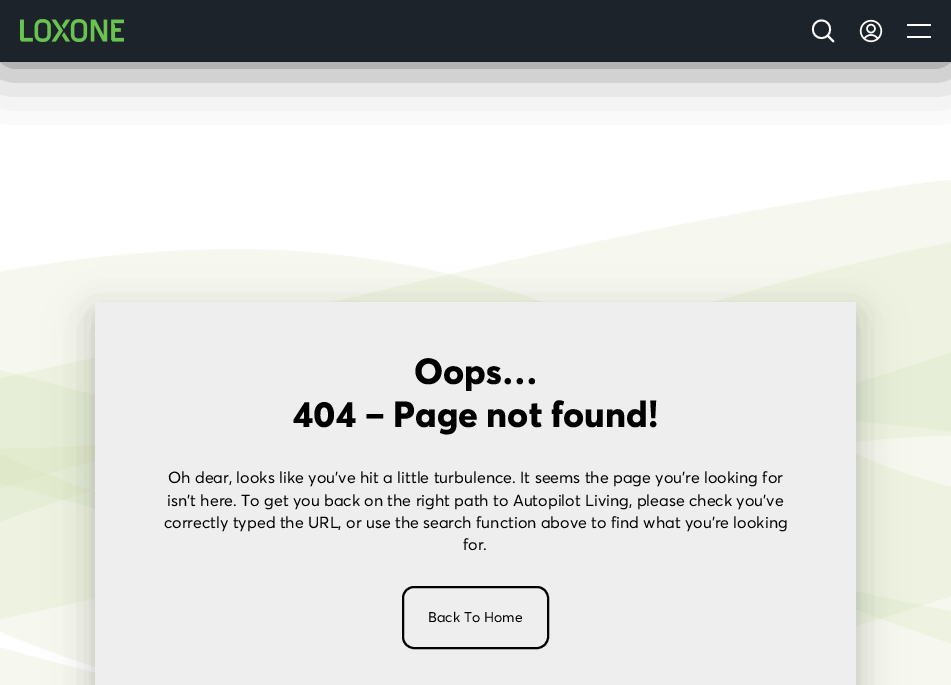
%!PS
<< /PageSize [951 685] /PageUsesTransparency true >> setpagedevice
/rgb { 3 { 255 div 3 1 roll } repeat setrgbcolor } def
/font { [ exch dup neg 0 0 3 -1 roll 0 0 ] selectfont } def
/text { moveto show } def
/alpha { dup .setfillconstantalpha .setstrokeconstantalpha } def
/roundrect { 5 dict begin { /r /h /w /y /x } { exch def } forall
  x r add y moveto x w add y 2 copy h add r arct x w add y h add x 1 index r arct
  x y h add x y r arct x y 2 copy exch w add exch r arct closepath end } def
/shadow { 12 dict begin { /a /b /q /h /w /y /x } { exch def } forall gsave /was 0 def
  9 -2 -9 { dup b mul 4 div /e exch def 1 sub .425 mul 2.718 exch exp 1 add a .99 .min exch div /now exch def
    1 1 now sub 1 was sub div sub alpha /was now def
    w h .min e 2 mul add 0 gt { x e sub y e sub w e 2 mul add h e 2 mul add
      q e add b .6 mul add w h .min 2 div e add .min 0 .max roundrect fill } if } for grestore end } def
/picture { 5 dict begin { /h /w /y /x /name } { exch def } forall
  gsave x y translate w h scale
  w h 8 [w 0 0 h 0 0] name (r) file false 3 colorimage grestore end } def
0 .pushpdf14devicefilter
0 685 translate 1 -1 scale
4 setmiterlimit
255 255 255 rgb
0 0 951 685 rectfill
0 0 0 rgb
0 0 951 62 0 28 0.6 shadow
29 35 42 rgb
0 0 951 62 rectfill
(img_01.rgb) 20 19 104 23 picture
255 255 255 rgb
1.8 setlinewidth
1 setlinecap
1 setlinejoin
833.5 41.5 moveto -6 -6 rlineto 821.5 38 moveto 11.5 0 11.5 -17.5 0 -17.5 rcurveto -11.5 0 -11.5 17.5 0 17.5 rcurveto closepath stroke
(img_02.rgb) 859 19 24 24 picture
907 24 24 2 rectfill
907 36 24 2 rectfill
(img_03.rgb) 0 180 951 505 picture
0 0 0 rgb
95 322 761 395 0 25 0.1 shadow
95 312 761 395 0 15 0.15 shadow
238 238 238 rgb
95 302 761 383 rectfill
0 0 0 rgb
2 setlinewidth
0 setlinecap
0 setlinejoin
403 587 145 61 11 roundrect stroke
/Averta-ExtraBold 36 font
(Oops…) 414 384 text
(404 – Page not found!) 293 427 text
/Averta-Regular 16 font
(Oh dear, looks like you’ve hit a little turbulence. It seems the page you’re looking for) 168 483 text
(isn’t here. To get you back on the right path to Autopilot Living, please check you’ve) 167 506 text
(correctly typed the URL, or use the search function above to find what you’re looking) 164 528 text
(for.) 463 550 text
/Averta-Regular 14 font
(Back To Home) 428 622 text
.poppdf14devicefilter showpage
